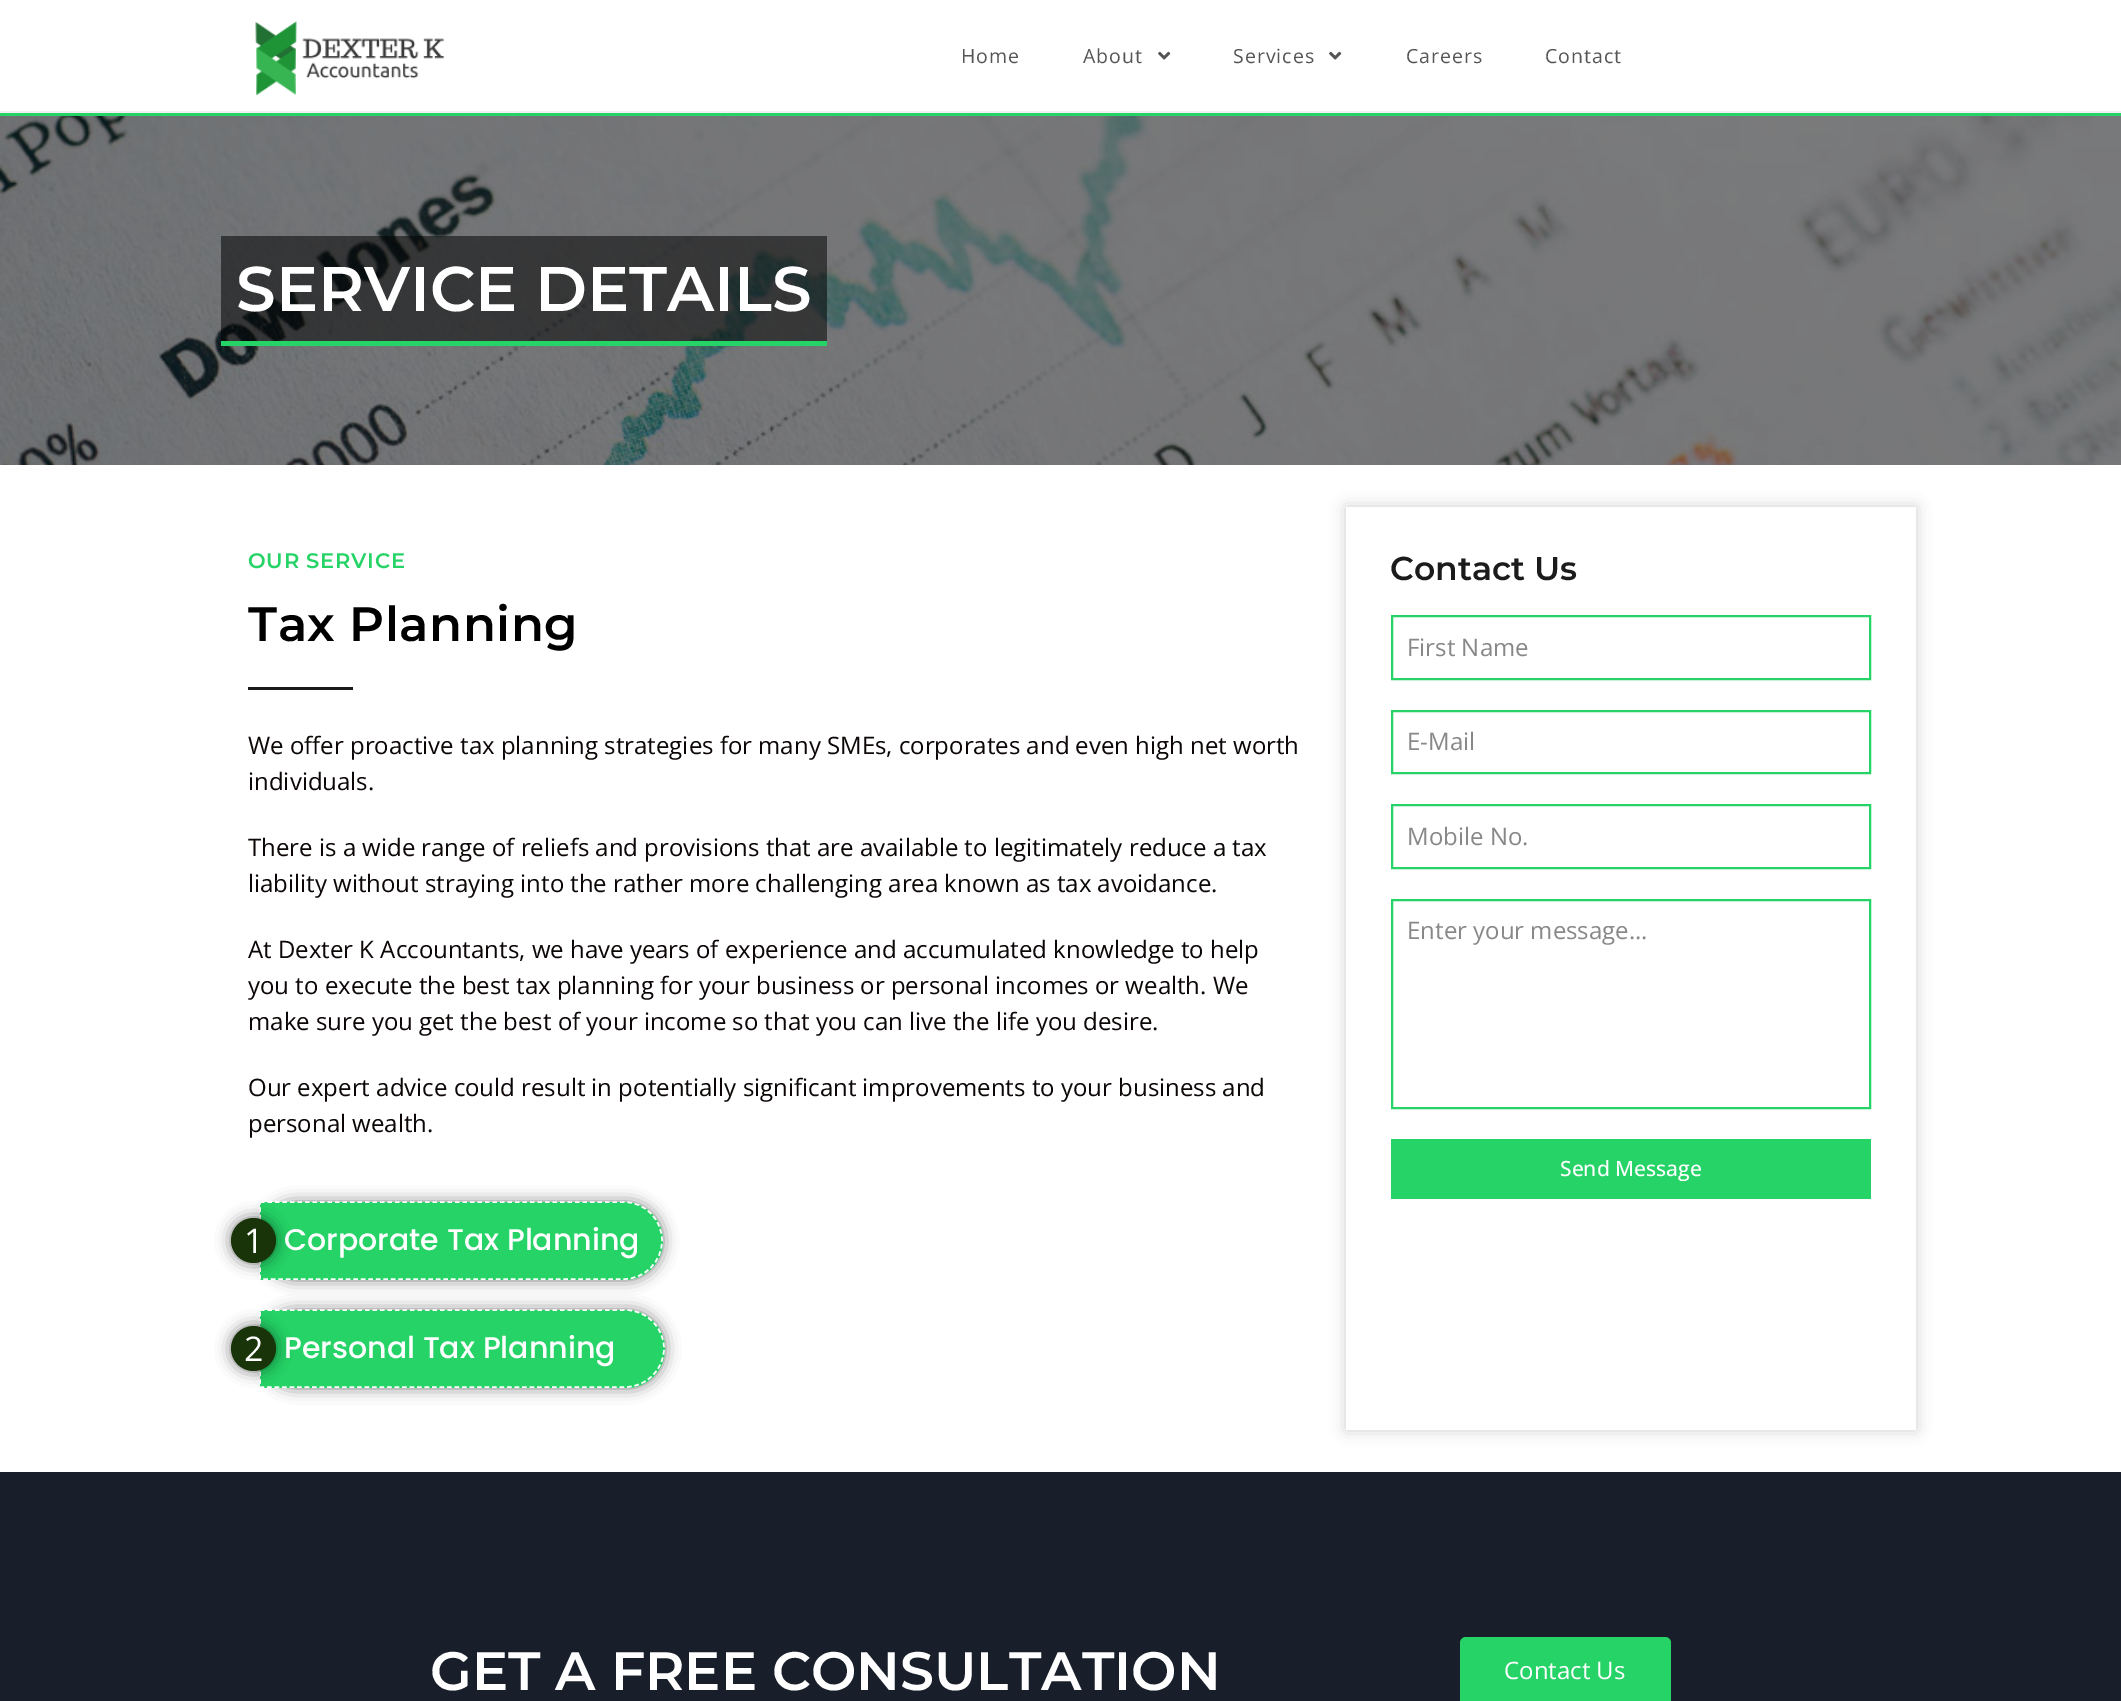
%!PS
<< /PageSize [2121 1701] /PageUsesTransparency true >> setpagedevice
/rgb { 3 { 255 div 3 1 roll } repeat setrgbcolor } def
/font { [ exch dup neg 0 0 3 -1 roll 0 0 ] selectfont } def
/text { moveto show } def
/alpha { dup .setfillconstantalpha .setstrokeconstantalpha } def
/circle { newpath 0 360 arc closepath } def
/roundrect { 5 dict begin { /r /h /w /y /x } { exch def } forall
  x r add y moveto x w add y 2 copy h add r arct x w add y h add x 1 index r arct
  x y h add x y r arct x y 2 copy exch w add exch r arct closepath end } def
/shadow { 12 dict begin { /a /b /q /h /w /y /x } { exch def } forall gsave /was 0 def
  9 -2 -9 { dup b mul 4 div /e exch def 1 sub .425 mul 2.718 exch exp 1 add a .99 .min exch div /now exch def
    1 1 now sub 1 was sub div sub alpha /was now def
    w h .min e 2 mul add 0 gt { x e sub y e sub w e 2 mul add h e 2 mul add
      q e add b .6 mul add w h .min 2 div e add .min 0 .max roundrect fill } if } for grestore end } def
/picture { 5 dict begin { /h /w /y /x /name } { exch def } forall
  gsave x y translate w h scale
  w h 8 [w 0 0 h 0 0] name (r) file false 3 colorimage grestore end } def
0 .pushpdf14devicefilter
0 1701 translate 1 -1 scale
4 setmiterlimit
255 255 255 rgb
0 0 2121 1701 rectfill
241 241 241 rgb
0 111 2121 2 rectfill
(img_01.rgb) 255 21 190 75 picture
(img_02.rgb) 1158 51 13 9 picture
(img_02.rgb) 1329 51 13 9 picture
(img_03.rgb) 0 116 2121 349 picture
37 211 102 rgb
0 113 2121 3 rectfill
0.53 alpha
0 0 0 rgb
221 236 606 105 rectfill
1 alpha
37 211 102 rgb
221 341 606 5 rectfill
27 27 27 rgb
248 687 105 3 rectfill
0 0 0 rgb
260 1202 403 78 39 7.5 0.5 shadow
37 211 102 rgb
260 1202 moveto 364 0 rlineto 21.5 0 39 17.5 39 39 rcurveto 0 21.5 -17.5 39 -39 39 rcurveto -364 0 rlineto closepath fill
255 255 255 rgb
1.5 setlinewidth
[4.5 3] 0 setdash
260 1202 moveto 364 0 rlineto 21 0 38 17.5 38 38.5 rcurveto 0 21 -17 38.5 -38 38.5 rcurveto -364 0 rlineto closepath stroke
0 0 0 rgb
231 1218 45 45 22.5 7.5 0.5 shadow
26 52 9 rgb
253.5 1240.5 22.5 circle fill
0 0 0 rgb
260 1310 405 78 39 7.5 0.5 shadow
37 211 102 rgb
260 1310 moveto 366 0 rlineto 21.5 0 39 17.5 39 39 rcurveto 0 21.5 -17.5 39 -39 39 rcurveto -366 0 rlineto closepath fill
255 255 255 rgb
260 1310 moveto 365.5 0 rlineto 21 0 38.5 17.5 38.5 38.5 rcurveto 0 21 -17.5 38.5 -38.5 38.5 rcurveto -365.5 0 rlineto closepath stroke
0 0 0 rgb
231 1326 45 45 22.5 7.5 0.5 shadow
26 52 9 rgb
253.5 1348.5 22.5 circle fill
gsave
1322 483 moveto 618 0 rlineto 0 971 rlineto -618 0 rlineto closepath 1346 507 moveto 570 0 rlineto 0 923 rlineto -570 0 rlineto closepath eoclip newpath
0 0 0 rgb
1346 507 570 923 0 7.5 0.19 shadow
grestore
37 211 102 rgb
2 setlinewidth
[] 0 setdash
1392 616 478 63 rectstroke
1392 711 478 62 rectstroke
1392 805 478 63 rectstroke
1392 900 478 208 rectstroke
1391 1139 480 60 rectfill
24 30 42 rgb
0 1472 2121 229 rectfill
37 211 102 rgb
1460 1637 211 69 6 roundrect fill
/OpenSans-Regular 19.5 font
85 85 85 rgb
961 63 moveto 1 0 (Home) ashow
1083 63 moveto 1 0 (About) ashow
1233 63 moveto 1 0 (Services) ashow
1406 63 moveto 1 0 (Careers) ashow
1545 63 moveto 1 0 (Contact) ashow
/Montserrat-SemiBold 63 font
255 255 255 rgb
(SERVICE DETAILS) 236 311 text
/Montserrat-SemiBold 21 font
37 211 102 rgb
248 568 moveto 0.75 0 (OUR SERVICE) ashow
/Montserrat-SemiBold 48.25 font
0 0 0 rgb
248 641 moveto 0.5 0 (Tax Planning) ashow
/OpenSans-Regular 24 font
12 6 6 rgb
(We offer proactive tax planning strategies for many SMEs, corporates and even high net worth) 248 754 text
(individuals.) 248 790 text
(There is a wide range of reliefs and provisions that are available to legitimately reduce a tax) 248 856 text
(liability without straying into the rather more challenging area known as tax avoidance.) 248 892 text
(At Dexter K Accountants, we have years of experience and accumulated knowledge to help) 248 958 text
(you to execute the best tax planning for your business or personal incomes or wealth. We) 248 994 text
(make sure you get the best of your income so that you can live the life you desire.) 248 1030 text
(Our expert advice could result in potentially significant improvements to your business and) 248 1096 text
(personal wealth.) 248 1132 text
/OpenSans-Regular 34 font
255 255 255 rgb
(1) 244 1253 text
/Poppins-Medium 30 font
(Corporate Tax Planning) 284 1250 text
/OpenSans-Regular 34 font
(2) 244 1361 text
/Poppins-Medium 30 font
(Personal Tax Planning) 284 1358 text
/Montserrat-SemiBold 33 font
27 27 27 rgb
(Contact Us) 1390 580 text
/OpenSans-Regular 24 font
136 136 136 rgb
(First Name) 1407 656 text
(E-Mail) 1407 750 text
(Mobile No.) 1407 845 text
(Enter your message...) 1407 939 text
/OpenSans-Medium 21 font
255 255 255 rgb
(Send Message) 1560 1176 text
/Montserrat-SemiBold 54 font
(GET A FREE CONSULTATION) 430 1690 text
/OpenSans-Regular 24 font
(Contact Us) 1504 1679 text
.poppdf14devicefilter showpage
